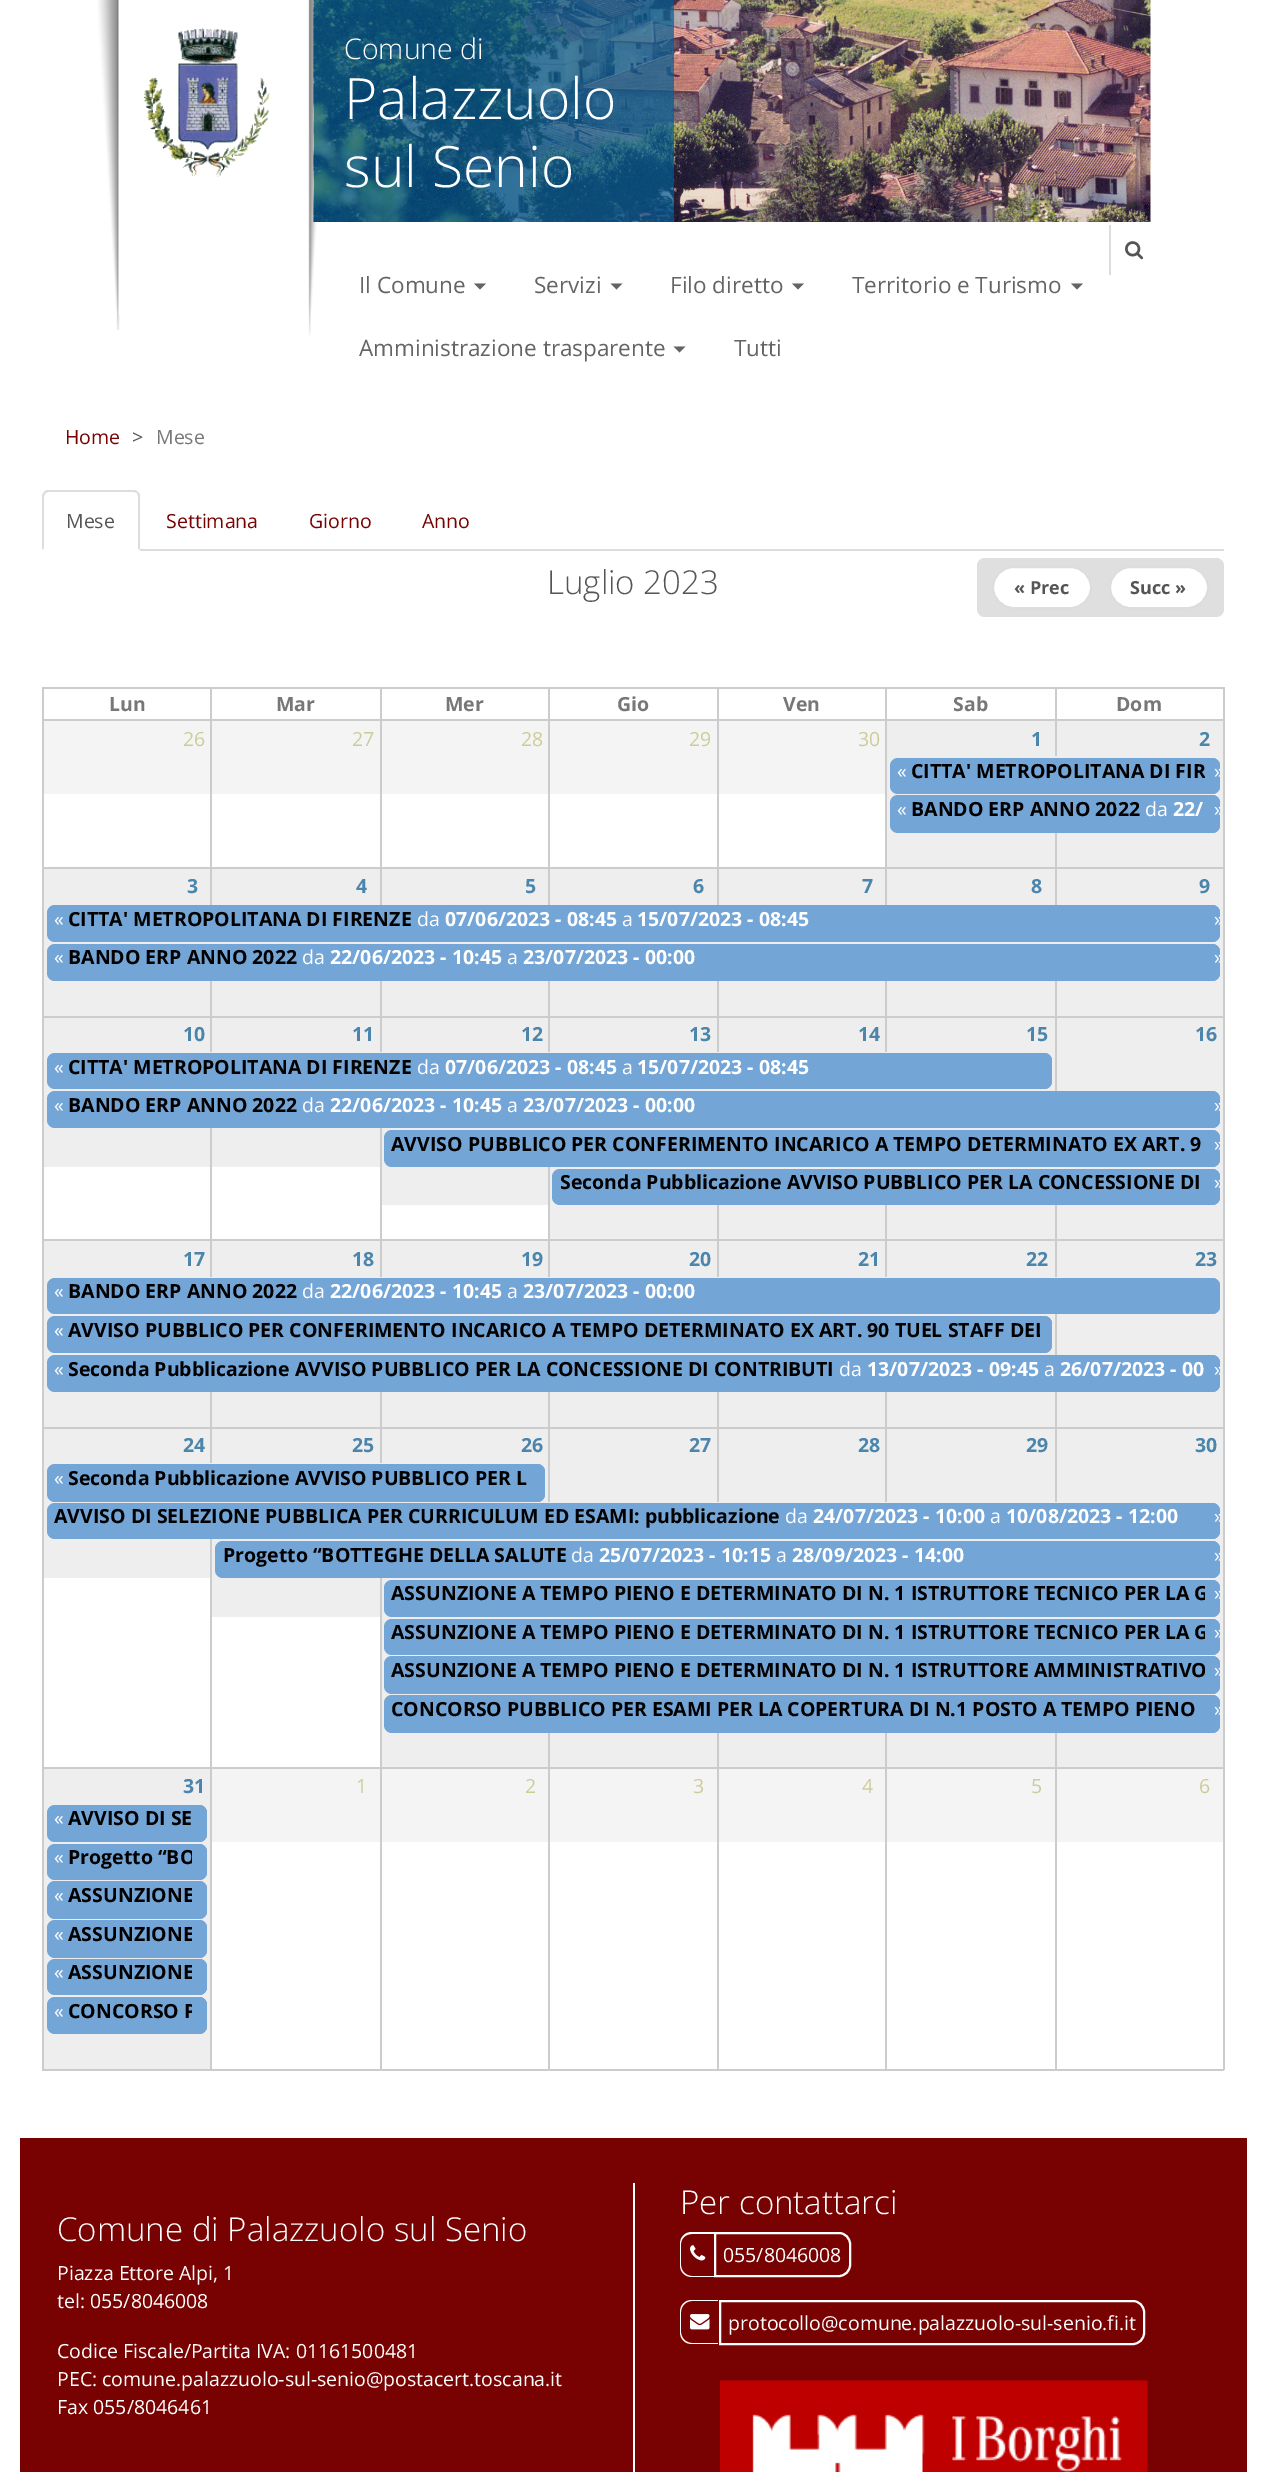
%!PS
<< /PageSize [1265 2472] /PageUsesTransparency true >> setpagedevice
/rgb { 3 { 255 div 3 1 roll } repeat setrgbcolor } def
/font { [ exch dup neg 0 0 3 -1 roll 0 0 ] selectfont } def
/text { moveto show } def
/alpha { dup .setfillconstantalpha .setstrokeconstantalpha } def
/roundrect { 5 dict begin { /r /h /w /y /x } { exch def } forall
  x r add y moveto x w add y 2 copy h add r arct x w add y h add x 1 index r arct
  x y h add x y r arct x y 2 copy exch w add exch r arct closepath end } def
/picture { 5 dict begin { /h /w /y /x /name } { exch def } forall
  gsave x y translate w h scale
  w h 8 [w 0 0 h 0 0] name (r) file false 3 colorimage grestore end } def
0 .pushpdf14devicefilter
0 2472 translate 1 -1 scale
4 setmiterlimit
255 255 255 rgb
0 0 1265 2472 rectfill
(img_01.rgb) 97 0 23 330 picture
(img_02.rgb) 143 28 127 149 picture
(img_03.rgb) 308 0 9 336 picture
(img_04.rgb) 313 0 838 222 picture
0.7 alpha
0 94 148 rgb
314 0 360 222 rectfill
1 alpha
221 221 221 rgb
1109 225 2 50 rectfill
(img_05.rgb) 1125 241 19 19 picture
100 100 100 rgb
474 283.5 moveto 12 0 rlineto -6 6 rlineto closepath fill
610.5 283.5 moveto 12 0 rlineto -6 6 rlineto closepath fill
792 283.5 moveto 12 0 rlineto -6 6 rlineto closepath fill
1071 283.5 moveto 12 0 rlineto -6 6 rlineto closepath fill
673.5 346.5 moveto 12 0 rlineto -6 6 rlineto closepath fill
221 221 221 rgb
140 549 1084 2 rectfill
48 492 moveto -1 0 -2 1 -3 2 rcurveto -1 -2 rlineto 2 -2 rlineto 90 0 rlineto 2 2 rlineto -1 1 rlineto -3 -1 rlineto closepath fill
140 550 moveto -2 -1 rlineto 0 -53 rlineto -1 -3 rlineto 1 -1 rlineto 2 2 rlineto closepath fill
42 496 moveto 0 54 rlineto 2 -2 rlineto 0 -52 rlineto 1 -2 rlineto -1 -2 rlineto -1 1 -2 3 -2 4 rcurveto closepath fill
223 223 223 rgb
985 558 moveto 122 0 rlineto 0 59 rlineto -122 0 rlineto -4.5 0 -8 -3.5 -8 -8 rcurveto 0 -43 rlineto 0 -4.5 3.5 -8 8 -8 rcurveto closepath fill
255 255 255 rgb
993 567 98 41 20.5 roundrect gsave fill grestore
221 221 221 rgb
2 setlinewidth
stroke
223 223 223 rgb
1094 558 moveto 122 0 rlineto 4.5 0 8 3.5 8 8 rcurveto 0 43 rlineto 0 4.5 -3.5 8 -8 8 rcurveto -122 0 rlineto closepath fill
255 255 255 rgb
1110 567 98 41 20.5 roundrect gsave fill grestore
221 221 221 rgb
stroke
204 204 204 rgb
1055 687 169 2 rectfill
42 719 1182 2 rectfill
1055 719 2 37 rectfill
1055 687 2 33 rectfill
885 687 171 2 rectfill
1223 719 2 1351 rectfill
1055 867 169 2 rectfill
238 238 238 rgb
44 903 1179 78 rectfill
204 204 204 rgb
1055 867 2 38 rectfill
885 867 171 2 rectfill
885 867 2 38 rectfill
717 867 170 2 rectfill
885 719 2 150 rectfill
885 687 2 33 rectfill
717 687 170 2 rectfill
717 867 2 38 rectfill
548 867 171 2 rectfill
717 719 2 150 rectfill
717 687 2 33 rectfill
548 687 171 2 rectfill
548 867 2 38 rectfill
380 867 169 2 rectfill
548 719 2 150 rectfill
548 687 2 33 rectfill
380 687 169 2 rectfill
380 867 2 38 rectfill
210 867 171 2 rectfill
380 719 2 150 rectfill
380 687 2 33 rectfill
210 687 171 2 rectfill
42 2069 1182 2 rectfill
42 719 2 1351 rectfill
210 867 2 38 rectfill
42 867 170 2 rectfill
210 719 2 150 rectfill
210 687 2 33 rectfill
42 687 170 2 rectfill
42 687 2 33 rectfill
1223 687 2 33 rectfill
238 238 238 rgb
887 833 168 34 rectfill
1057 833 166 34 rectfill
887 756 336 77 rectfill
204 204 204 rgb
1055 831 2 38 rectfill
244 244 244 rgb
44 721 166 73 rectfill
212 721 168 73 rectfill
382 721 166 73 rectfill
550 721 167 73 rectfill
719 721 166 73 rectfill
238 238 238 rgb
887 721 168 35 rectfill
1057 721 166 35 rectfill
116 165 215 rgb
890 758 330 36 8 roundrect fill
890 795 330 38 8 roundrect fill
1205 795 moveto 7 0 rlineto 4.5 0 8 3.5 8 8 rcurveto 0 22 rlineto 0 4.5 -3.5 8 -8 8 rcurveto -7 0 rlineto closepath fill
238 238 238 rgb
44 869 166 34 rectfill
212 869 168 34 rectfill
382 869 166 34 rectfill
550 869 167 34 rectfill
719 869 166 34 rectfill
887 869 168 34 rectfill
1057 869 166 34 rectfill
116 165 215 rgb
47 905 1173 37 8 roundrect fill
1205 905 moveto 7 0 rlineto 4.5 0 8 3.5 8 8 rcurveto 0 21 rlineto 0 4.5 -3.5 8 -8 8 rcurveto -7 0 rlineto closepath fill
204 204 204 rgb
1055 1016 169 2 rectfill
238 238 238 rgb
44 1089 1179 39 rectfill
204 204 204 rgb
1055 1050 2 41 rectfill
1055 1016 2 36 rectfill
885 1016 171 2 rectfill
885 1016 2 36 rectfill
717 1016 170 2 rectfill
717 1016 2 36 rectfill
548 1016 171 2 rectfill
548 1016 2 36 rectfill
380 1016 169 2 rectfill
380 1016 2 36 rectfill
210 1016 171 2 rectfill
210 1016 2 36 rectfill
42 1016 170 2 rectfill
210 980 2 37 rectfill
380 980 2 37 rectfill
548 980 2 37 rectfill
717 980 2 37 rectfill
885 980 2 37 rectfill
1055 980 2 37 rectfill
116 165 215 rgb
47 944 1173 37 8 roundrect fill
1205 944 moveto 7 0 rlineto 4.5 0 8 3.5 8 8 rcurveto 0 21 rlineto 0 4.5 -3.5 8 -8 8 rcurveto -7 0 rlineto closepath fill
238 238 238 rgb
44 981 166 35 rectfill
212 981 168 35 rectfill
382 981 166 35 rectfill
550 981 167 35 rectfill
719 981 166 35 rectfill
887 981 168 35 rectfill
1057 981 166 35 rectfill
44 1018 166 34 rectfill
212 1018 168 34 rectfill
382 1018 166 34 rectfill
550 1018 167 34 rectfill
719 1018 166 34 rectfill
887 1018 168 34 rectfill
1057 1018 166 71 rectfill
44 1052 1011 37 rectfill
116 165 215 rgb
47 1053 1005 36 8 roundrect fill
1040 1053 moveto 4 0 rlineto 4.5 0 8 3.5 8 8 rcurveto 0 20 rlineto 0 4.5 -3.5 8 -8 8 rcurveto -4 0 rlineto closepath fill
47 1091 1173 37 8 roundrect fill
1205 1091 moveto 7 0 rlineto 4.5 0 8 3.5 8 8 rcurveto 0 21 rlineto 0 4.5 -3.5 8 -8 8 rcurveto -7 0 rlineto closepath fill
238 238 238 rgb
44 1128 166 39 rectfill
212 1128 168 39 rectfill
204 204 204 rgb
1055 1239 169 2 rectfill
1055 1239 2 38 rectfill
885 1239 171 2 rectfill
885 1239 2 38 rectfill
717 1239 170 2 rectfill
717 1239 2 38 rectfill
548 1239 171 2 rectfill
548 1239 2 38 rectfill
380 1239 169 2 rectfill
380 1239 2 38 rectfill
210 1239 171 2 rectfill
210 1239 2 38 rectfill
42 1239 170 2 rectfill
210 1128 2 113 rectfill
238 238 238 rgb
382 1128 841 39 rectfill
204 204 204 rgb
548 1166 2 75 rectfill
116 165 215 rgb
384 1130 836 37 8 roundrect fill
1205 1130 moveto 7 0 rlineto 4.5 0 8 3.5 8 8 rcurveto 0 21 rlineto 0 4.5 -3.5 8 -8 8 rcurveto -7 0 rlineto closepath fill
238 238 238 rgb
550 1205 167 34 rectfill
719 1205 166 34 rectfill
204 204 204 rgb
717 1205 2 36 rectfill
238 238 238 rgb
887 1205 168 34 rectfill
204 204 204 rgb
885 1205 2 36 rectfill
238 238 238 rgb
1057 1205 166 34 rectfill
204 204 204 rgb
1055 1205 2 36 rectfill
238 238 238 rgb
382 1167 166 38 rectfill
204 204 204 rgb
380 1128 2 113 rectfill
238 238 238 rgb
550 1167 673 38 rectfill
116 165 215 rgb
552 1169 668 36 8 roundrect fill
1205 1169 moveto 7 0 rlineto 4.5 0 8 3.5 8 8 rcurveto 0 20 rlineto 0 4.5 -3.5 8 -8 8 rcurveto -7 0 rlineto closepath fill
238 238 238 rgb
44 1241 166 36 rectfill
212 1241 168 36 rectfill
382 1241 166 36 rectfill
550 1241 167 36 rectfill
719 1241 166 36 rectfill
887 1241 168 36 rectfill
1057 1241 166 36 rectfill
44 1277 1179 37 rectfill
116 165 215 rgb
47 1278 1173 36 8 roundrect fill
1208 1278 moveto 4 0 rlineto 4.5 0 8 3.5 8 8 rcurveto 0 20 rlineto 0 4.5 -3.5 8 -8 8 rcurveto -4 0 rlineto closepath fill
238 238 238 rgb
44 1314 1011 39 rectfill
116 165 215 rgb
47 1316 1005 37 8 roundrect fill
238 238 238 rgb
1057 1314 166 39 rectfill
44 1353 1179 39 rectfill
204 204 204 rgb
1055 1314 2 41 rectfill
1055 1427 169 2 rectfill
1055 1461 2 41 rectfill
1055 1427 2 36 rectfill
885 1427 171 2 rectfill
885 1461 2 41 rectfill
885 1427 2 36 rectfill
717 1427 170 2 rectfill
717 1461 2 41 rectfill
717 1427 2 36 rectfill
548 1427 171 2 rectfill
548 1461 2 41 rectfill
548 1427 2 36 rectfill
380 1427 169 2 rectfill
380 1427 2 36 rectfill
210 1427 171 2 rectfill
210 1427 2 36 rectfill
42 1427 170 2 rectfill
210 1391 2 37 rectfill
380 1391 2 37 rectfill
548 1391 2 37 rectfill
717 1391 2 37 rectfill
885 1391 2 37 rectfill
1055 1391 2 37 rectfill
116 165 215 rgb
47 1355 1173 37 8 roundrect fill
1205 1355 moveto 7 0 rlineto 4.5 0 8 3.5 8 8 rcurveto 0 21 rlineto 0 4.5 -3.5 8 -8 8 rcurveto -7 0 rlineto closepath fill
238 238 238 rgb
44 1392 166 35 rectfill
212 1392 168 35 rectfill
382 1392 166 35 rectfill
550 1392 167 35 rectfill
719 1392 166 35 rectfill
887 1392 168 35 rectfill
1057 1392 166 35 rectfill
44 1429 166 34 rectfill
212 1429 168 34 rectfill
382 1429 166 34 rectfill
550 1429 167 73 rectfill
719 1429 166 73 rectfill
887 1429 168 73 rectfill
1057 1429 166 73 rectfill
44 1463 504 39 rectfill
116 165 215 rgb
47 1464 498 38 8 roundrect fill
533 1464 moveto 4 0 rlineto 4.5 0 8 3.5 8 8 rcurveto 0 22 rlineto 0 4.5 -3.5 8 -8 8 rcurveto -4 0 rlineto closepath fill
238 238 238 rgb
44 1502 1179 37 rectfill
116 165 215 rgb
47 1503 1173 36 8 roundrect fill
1205 1503 moveto 7 0 rlineto 4.5 0 8 3.5 8 8 rcurveto 0 20 rlineto 0 4.5 -3.5 8 -8 8 rcurveto -7 0 rlineto closepath fill
238 238 238 rgb
44 1539 166 39 rectfill
212 1539 1011 39 rectfill
204 204 204 rgb
1055 1767 169 2 rectfill
1055 1802 2 268 rectfill
1055 1767 2 36 rectfill
885 1767 171 2 rectfill
885 1802 2 268 rectfill
885 1767 2 36 rectfill
717 1767 170 2 rectfill
717 1802 2 268 rectfill
717 1767 2 36 rectfill
548 1767 171 2 rectfill
548 1802 2 268 rectfill
548 1767 2 36 rectfill
380 1767 169 2 rectfill
380 1802 2 268 rectfill
380 1767 2 36 rectfill
210 1767 171 2 rectfill
380 1577 2 192 rectfill
116 165 215 rgb
215 1541 1005 37 8 roundrect fill
1205 1541 moveto 7 0 rlineto 4.5 0 8 3.5 8 8 rcurveto 0 21 rlineto 0 4.5 -3.5 8 -8 8 rcurveto -7 0 rlineto closepath fill
238 238 238 rgb
382 1733 166 34 rectfill
550 1733 167 34 rectfill
382 1578 841 155 rectfill
204 204 204 rgb
548 1731 2 38 rectfill
238 238 238 rgb
719 1733 166 34 rectfill
204 204 204 rgb
717 1731 2 38 rectfill
238 238 238 rgb
887 1733 168 34 rectfill
204 204 204 rgb
885 1731 2 38 rectfill
238 238 238 rgb
1057 1733 166 34 rectfill
204 204 204 rgb
1055 1731 2 38 rectfill
238 238 238 rgb
212 1578 168 39 rectfill
204 204 204 rgb
210 1802 2 268 rectfill
210 1767 2 36 rectfill
42 1767 170 2 rectfill
210 1539 2 230 rectfill
116 165 215 rgb
384 1580 836 37 8 roundrect fill
384 1619 836 36 8 roundrect fill
384 1656 836 38 8 roundrect fill
384 1695 836 38 8 roundrect fill
1205 1695 moveto 7 0 rlineto 4.5 0 8 3.5 8 8 rcurveto 0 22 rlineto 0 4.5 -3.5 8 -8 8 rcurveto -7 0 rlineto closepath fill
238 238 238 rgb
44 1769 166 300 rectfill
244 244 244 rgb
212 1769 168 73 rectfill
382 1769 166 73 rectfill
550 1769 167 73 rectfill
719 1769 166 73 rectfill
887 1769 168 73 rectfill
1057 1769 166 73 rectfill
116 165 215 rgb
47 1805 160 37 8 roundrect fill
192 1805 moveto 7 0 rlineto 4.5 0 8 3.5 8 8 rcurveto 0 21 rlineto 0 4.5 -3.5 8 -8 8 rcurveto -7 0 rlineto closepath fill
47 1844 160 36 8 roundrect fill
47 1881 160 38 8 roundrect fill
47 1920 160 38 8 roundrect fill
47 1959 160 36 8 roundrect fill
47 1997 160 37 8 roundrect fill
120 2 2 rgb
20 2138 1227 334 rectfill
255 255 255 rgb
633 2183 2 289 rectfill
692 2232 moveto 22 0 rlineto 0 45 rlineto -22 0 rlineto -7 0 -12 -5 -12 -12 rcurveto 0 -21 rlineto 0 -7 5 -12 12 -12 rcurveto closepath 692 2234 moveto 22 0 rlineto 0 42 rlineto -22 0 rlineto -6 0 -11 -5 -11 -11 rcurveto 0 -21 rlineto 0 -6 5 -10 11 -10 rcurveto closepath eofill
(img_06.rgb) 690 2245 16 16 picture
715 2233 moveto 124 0 rlineto 6 0 11 5 11 11 rcurveto 0 21 rlineto 0 6 -5 11 -11 11 rcurveto -124 0 rlineto closepath stroke
692 2300 moveto 26 0 rlineto 0 44 rlineto -26 0 rlineto -7 0 -12 -5 -12 -12 rcurveto 0 -20 rlineto 0 -7 5 -12 12 -12 rcurveto closepath 692 2301 moveto 26 0 rlineto 0 42 rlineto -26 0 rlineto -6 0 -11 -5 -11 -11 rcurveto 0 -20 rlineto 0 -6 5 -11 11 -11 rcurveto closepath eofill
(img_07.rgb) 690 2314 20 16 picture
720 2301 moveto 413 0 rlineto 6 0 11 5 11 11 rcurveto 0 21 rlineto 0 6 -5 11 -11 11 rcurveto -413 0 rlineto closepath stroke
(img_08.rgb) 720 2380 428 92 picture
/OpenSans-Light 28.5 font
(Comune di) 344 59 text
/OpenSans-Light 57 font
(Palazzuolo) 344 119 text
(sul Senio) 344 187 text
/OpenSans-Regular 22.5 font
100 100 100 rgb
(Il Comune) 359 293 text
(Servizi) 534 293 text
(Filo diretto) 670 293 text
(Territorio e Turismo) 852 293 text
(Amministrazione trasparente) 359 356 text
(Tutti) 734 356 text
/OpenSans-Regular 19.5 font
120 2 2 rgb
(Home) 65 444 text
85 85 85 rgb
(>) 132 444 text
119 119 119 rgb
(Mese) 156 444 text
85 85 85 rgb
(Mese) 66 528 text
120 2 2 rgb
(Settimana) 166 528 text
(Giorno) 309 528 text
(Anno) 422 528 text
/OpenSans-Light 33 font
85 85 85 rgb
(Luglio 2023) 547 594 text
/OpenSans-Bold 18 font
(« Prec) 1014 594 text
(Succ ») 1130 594 text
/OpenSans-Bold 19.5 font
119 119 119 rgb
(Lun) 109 711 text
(Mar) 276 711 text
(Mer) 445 711 text
(Gio) 617 711 text
(Ven) 783 711 text
(Sab) 953 711 text
(Dom) 1116 711 text
/OpenSans-Regular 19.5 font
204 204 153 rgb
(26) 183 746 text
(27) 352 746 text
(28) 521 746 text
(29) 689 746 text
(30) 858 746 text
/OpenSans-Bold 19.5 font
75 133 172 rgb
(1) 1031 746 text
(2) 1199 746 text
/OpenSans-Regular 19.5 font
255 255 255 rgb
(«) 897 778 text
/OpenSans-Bold 19.5 font
0 0 0 rgb
(CITTA' METROPOLITANA DI FIR) 911 778 text
116 165 215 rgb
1205 758 moveto 7 0 rlineto 4.5 0 8 3.5 8 8 rcurveto 0 20 rlineto 0 4.5 -3.5 8 -8 8 rcurveto -7 0 rlineto closepath fill
gsave
890 758 330 36 8 roundrect clip newpath
/OpenSans-Regular 19.5 font
255 255 255 rgb
(») 1214 778 text
grestore
/OpenSans-Regular 19.5 font
255 255 255 rgb
(«) 897 816 text
/OpenSans-Bold 19.5 font
0 0 0 rgb
(BANDO ERP ANNO 2022) 911 816 text
/OpenSans-Regular 19.5 font
255 255 255 rgb
(da) 1145 816 text
/OpenSans-Bold 19.5 font
(22/) 1173 816 text
gsave
890 795 330 38 8 roundrect clip newpath
/OpenSans-Regular 19.5 font
(») 1214 816 text
grestore
75 133 172 rgb
(3) 187 893 text
(4) 356 893 text
(5) 525 893 text
(6) 693 893 text
(7) 862 893 text
(8) 1031 893 text
(9) 1199 893 text
/OpenSans-Regular 19.5 font
255 255 255 rgb
(«) 54 926 text
/OpenSans-Bold 19.5 font
0 0 0 rgb
(CITTA' METROPOLITANA DI FIRENZE) 68 926 text
/OpenSans-Regular 19.5 font
255 255 255 rgb
(da) 417 926 text
/OpenSans-Bold 19.5 font
(07/06/2023 - 08:45) 445 926 text
/OpenSans-Regular 19.5 font
(a) 622 926 text
/OpenSans-Bold 19.5 font
(15/07/2023 - 08:45) 637 926 text
gsave
47 905 1173 37 8 roundrect clip newpath
/OpenSans-Regular 19.5 font
(») 1214 926 text
grestore
/OpenSans-Regular 19.5 font
(«) 54 964 text
/OpenSans-Bold 19.5 font
0 0 0 rgb
(BANDO ERP ANNO 2022) 68 964 text
/OpenSans-Regular 19.5 font
255 255 255 rgb
(da) 302 964 text
/OpenSans-Bold 19.5 font
(22/06/2023 - 10:45) 330 964 text
/OpenSans-Regular 19.5 font
(a) 507 964 text
/OpenSans-Bold 19.5 font
(23/07/2023 - 00:00) 523 964 text
gsave
47 944 1173 37 8 roundrect clip newpath
/OpenSans-Regular 19.5 font
(») 1214 964 text
grestore
75 133 172 rgb
(10) 183 1041 text
(11) 352 1041 text
(12) 521 1041 text
(13) 689 1041 text
(14) 858 1041 text
(15) 1026 1041 text
(16) 1195 1041 text
/OpenSans-Regular 19.5 font
255 255 255 rgb
(«) 54 1074 text
/OpenSans-Bold 19.5 font
0 0 0 rgb
(CITTA' METROPOLITANA DI FIRENZE) 68 1074 text
/OpenSans-Regular 19.5 font
255 255 255 rgb
(da) 417 1074 text
/OpenSans-Bold 19.5 font
(07/06/2023 - 08:45) 445 1074 text
/OpenSans-Regular 19.5 font
(a) 622 1074 text
/OpenSans-Bold 19.5 font
(15/07/2023 - 08:45) 637 1074 text
/OpenSans-Regular 19.5 font
(«) 54 1112 text
/OpenSans-Bold 19.5 font
0 0 0 rgb
(BANDO ERP ANNO 2022) 68 1112 text
/OpenSans-Regular 19.5 font
255 255 255 rgb
(da) 302 1112 text
/OpenSans-Bold 19.5 font
(22/06/2023 - 10:45) 330 1112 text
/OpenSans-Regular 19.5 font
(a) 507 1112 text
/OpenSans-Bold 19.5 font
(23/07/2023 - 00:00) 523 1112 text
gsave
47 1091 1173 37 8 roundrect clip newpath
/OpenSans-Regular 19.5 font
(») 1214 1112 text
grestore
0 0 0 rgb
(AVVISO PUBBLICO PER CONFERIMENTO INCARICO A TEMPO DETERMINATO EX ART. 9) 391 1151 text
gsave
384 1130 836 37 8 roundrect clip newpath
/OpenSans-Regular 19.5 font
255 255 255 rgb
(») 1214 1151 text
grestore
(Seconda Pubblicazione AVVISO PUBBLICO PER LA CONCESSIONE DI) 560 1189 text
gsave
552 1169 668 36 8 roundrect clip newpath
/OpenSans-Regular 19.5 font
255 255 255 rgb
(») 1214 1189 text
grestore
75 133 172 rgb
(17) 183 1266 text
(18) 352 1266 text
(19) 521 1266 text
(20) 689 1266 text
(21) 858 1266 text
(22) 1026 1266 text
(23) 1195 1266 text
/OpenSans-Regular 19.5 font
255 255 255 rgb
(«) 54 1298 text
/OpenSans-Bold 19.5 font
0 0 0 rgb
(BANDO ERP ANNO 2022) 68 1298 text
/OpenSans-Regular 19.5 font
255 255 255 rgb
(da) 302 1298 text
/OpenSans-Bold 19.5 font
(22/06/2023 - 10:45) 330 1298 text
/OpenSans-Regular 19.5 font
(a) 507 1298 text
/OpenSans-Bold 19.5 font
(23/07/2023 - 00:00) 523 1298 text
/OpenSans-Regular 19.5 font
(«) 54 1337 text
/OpenSans-Bold 19.5 font
0 0 0 rgb
(AVVISO PUBBLICO PER CONFERIMENTO INCARICO A TEMPO DETERMINATO EX ART. 90 TUEL STAFF DEL) 68 1337 text
116 165 215 rgb
1040 1316 moveto 4 0 rlineto 4.5 0 8 3.5 8 8 rcurveto 0 21 rlineto 0 4.5 -3.5 8 -8 8 rcurveto -4 0 rlineto closepath fill
/OpenSans-Regular 19.5 font
255 255 255 rgb
(«) 54 1376 text
/OpenSans-Bold 19.5 font
0 0 0 rgb
(Seconda Pubblicazione AVVISO PUBBLICO PER LA CONCESSIONE DI CONTRIBUTI) 68 1376 text
/OpenSans-Regular 19.5 font
255 255 255 rgb
(da) 839 1376 text
/OpenSans-Bold 19.5 font
(13/07/2023 - 09:45) 867 1376 text
/OpenSans-Regular 19.5 font
(a) 1044 1376 text
/OpenSans-Bold 19.5 font
(26/07/2023 - 00) 1060 1376 text
gsave
47 1355 1173 37 8 roundrect clip newpath
/OpenSans-Regular 19.5 font
(») 1214 1376 text
grestore
75 133 172 rgb
(24) 183 1452 text
(25) 352 1452 text
(26) 521 1452 text
(27) 689 1452 text
(28) 858 1452 text
(29) 1026 1452 text
(30) 1195 1452 text
/OpenSans-Regular 19.5 font
255 255 255 rgb
(«) 54 1485 text
/OpenSans-Bold 19.5 font
0 0 0 rgb
(Seconda Pubblicazione AVVISO PUBBLICO PER L) 68 1485 text
(AVVISO DI SELEZIONE PUBBLICA PER CURRICULUM ED ESAMI: pubblicazione) 54 1523 text
/OpenSans-Regular 19.5 font
255 255 255 rgb
(da) 785 1523 text
/OpenSans-Bold 19.5 font
(24/07/2023 - 10:00) 813 1523 text
/OpenSans-Regular 19.5 font
(a) 990 1523 text
/OpenSans-Bold 19.5 font
(10/08/2023 - 12:00) 1006 1523 text
gsave
47 1503 1173 36 8 roundrect clip newpath
/OpenSans-Regular 19.5 font
(») 1214 1523 text
grestore
0 0 0 rgb
(Progetto “BOTTEGHE DELLA SALUTE) 223 1562 text
/OpenSans-Regular 19.5 font
255 255 255 rgb
(da) 571 1562 text
/OpenSans-Bold 19.5 font
(25/07/2023 - 10:15) 599 1562 text
/OpenSans-Regular 19.5 font
(a) 776 1562 text
/OpenSans-Bold 19.5 font
(28/09/2023 - 14:00) 792 1562 text
gsave
215 1541 1005 37 8 roundrect clip newpath
/OpenSans-Regular 19.5 font
(») 1214 1562 text
grestore
0 0 0 rgb
(ASSUNZIONE A TEMPO PIENO E DETERMINATO DI N. 1 ISTRUTTORE TECNICO PER LA G) 391 1600 text
116 165 215 rgb
1205 1580 moveto 7 0 rlineto 4.5 0 8 3.5 8 8 rcurveto 0 21 rlineto 0 4.5 -3.5 8 -8 8 rcurveto -7 0 rlineto closepath fill
gsave
384 1580 836 37 8 roundrect clip newpath
/OpenSans-Regular 19.5 font
255 255 255 rgb
(») 1214 1600 text
grestore
0 0 0 rgb
(ASSUNZIONE A TEMPO PIENO E DETERMINATO DI N. 1 ISTRUTTORE TECNICO PER LA G) 391 1639 text
116 165 215 rgb
1205 1619 moveto 7 0 rlineto 4.5 0 8 3.5 8 8 rcurveto 0 20 rlineto 0 4.5 -3.5 8 -8 8 rcurveto -7 0 rlineto closepath fill
gsave
384 1619 836 36 8 roundrect clip newpath
/OpenSans-Regular 19.5 font
255 255 255 rgb
(») 1214 1639 text
grestore
0 0 0 rgb
(ASSUNZIONE A TEMPO PIENO E DETERMINATO DI N. 1 ISTRUTTORE AMMINISTRATIVO) 391 1677 text
116 165 215 rgb
1205 1656 moveto 7 0 rlineto 4.5 0 8 3.5 8 8 rcurveto 0 22 rlineto 0 4.5 -3.5 8 -8 8 rcurveto -7 0 rlineto closepath fill
gsave
384 1656 836 38 8 roundrect clip newpath
/OpenSans-Regular 19.5 font
255 255 255 rgb
(») 1214 1677 text
grestore
0 0 0 rgb
(CONCORSO PUBBLICO PER ESAMI PER LA COPERTURA DI N.1 POSTO A TEMPO PIENO) 391 1716 text
gsave
384 1695 836 38 8 roundrect clip newpath
/OpenSans-Regular 19.5 font
255 255 255 rgb
(») 1214 1716 text
grestore
75 133 172 rgb
(31) 183 1793 text
/OpenSans-Regular 19.5 font
204 204 153 rgb
(1) 356 1793 text
(2) 525 1793 text
(3) 693 1793 text
(4) 862 1793 text
(5) 1031 1793 text
(6) 1199 1793 text
255 255 255 rgb
(«) 54 1825 text
/OpenSans-Bold 19.5 font
0 0 0 rgb
(AVVISO DI SE) 68 1825 text
/OpenSans-Regular 19.5 font
255 255 255 rgb
(«) 54 1864 text
/OpenSans-Bold 19.5 font
0 0 0 rgb
(Progetto “BO) 68 1864 text
116 165 215 rgb
192 1844 moveto 7 0 rlineto 4.5 0 8 3.5 8 8 rcurveto 0 20 rlineto 0 4.5 -3.5 8 -8 8 rcurveto -7 0 rlineto closepath fill
/OpenSans-Regular 19.5 font
255 255 255 rgb
(«) 54 1902 text
/OpenSans-Bold 19.5 font
0 0 0 rgb
(ASSUNZIONE) 68 1902 text
116 165 215 rgb
192 1881 moveto 7 0 rlineto 4.5 0 8 3.5 8 8 rcurveto 0 22 rlineto 0 4.5 -3.5 8 -8 8 rcurveto -7 0 rlineto closepath fill
/OpenSans-Regular 19.5 font
255 255 255 rgb
(«) 54 1941 text
/OpenSans-Bold 19.5 font
0 0 0 rgb
(ASSUNZIONE) 68 1941 text
116 165 215 rgb
192 1920 moveto 7 0 rlineto 4.5 0 8 3.5 8 8 rcurveto 0 22 rlineto 0 4.5 -3.5 8 -8 8 rcurveto -7 0 rlineto closepath fill
/OpenSans-Regular 19.5 font
255 255 255 rgb
(«) 54 1979 text
/OpenSans-Bold 19.5 font
0 0 0 rgb
(ASSUNZIONE) 68 1979 text
116 165 215 rgb
192 1959 moveto 7 0 rlineto 4.5 0 8 3.5 8 8 rcurveto 0 20 rlineto 0 4.5 -3.5 8 -8 8 rcurveto -7 0 rlineto closepath fill
/OpenSans-Regular 19.5 font
255 255 255 rgb
(«) 54 2018 text
/OpenSans-Bold 19.5 font
0 0 0 rgb
(CONCORSO P) 68 2018 text
116 165 215 rgb
192 1997 moveto 7 0 rlineto 4.5 0 8 3.5 8 8 rcurveto 0 21 rlineto 0 4.5 -3.5 8 -8 8 rcurveto -7 0 rlineto closepath fill
/OpenSans-Light 33 font
255 255 255 rgb
(Comune di Palazzuolo sul Senio) 57 2241 text
/OpenSans-Regular 19.5 font
(Piazza Ettore Alpi, 1) 57 2280 text
(tel: 055/8046008) 57 2308 text
(Codice Fiscale/Partita IVA: 01161500481) 57 2358 text
(PEC: comune.palazzuolo-sul-senio@postacert.toscana.it) 57 2386 text
(Fax 055/8046461) 57 2414 text
/OpenSans-Light 33 font
(Per contattarci) 680 2214 text
/OpenSans-Regular 19.5 font
(055/8046008) 723 2262 text
(protocollo@comune.palazzuolo-sul-senio.fi.it) 728 2330 text
.poppdf14devicefilter showpage
